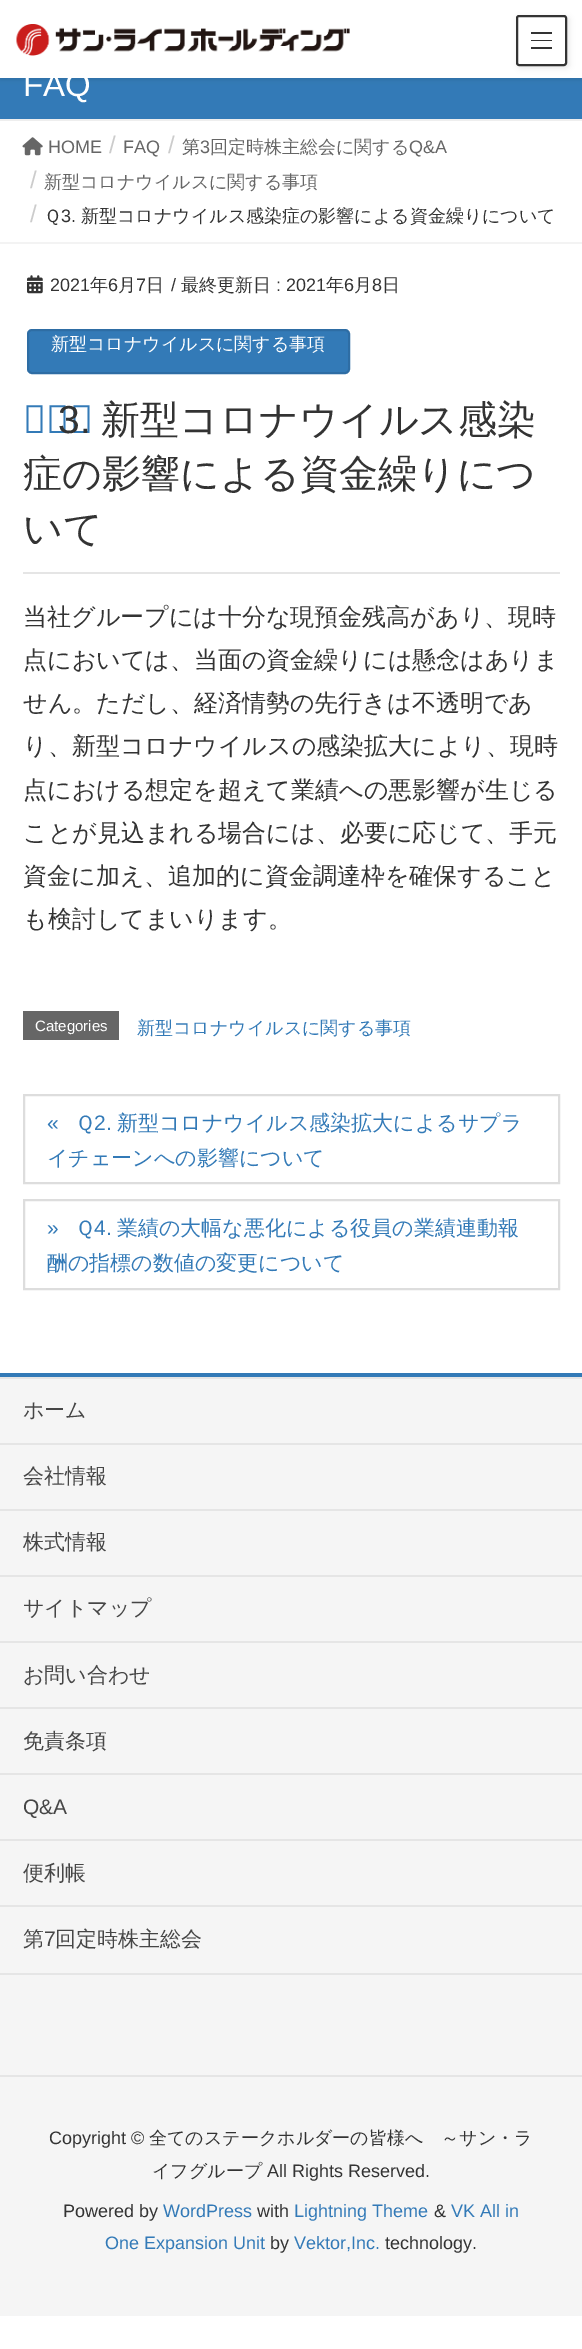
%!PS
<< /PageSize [582 2349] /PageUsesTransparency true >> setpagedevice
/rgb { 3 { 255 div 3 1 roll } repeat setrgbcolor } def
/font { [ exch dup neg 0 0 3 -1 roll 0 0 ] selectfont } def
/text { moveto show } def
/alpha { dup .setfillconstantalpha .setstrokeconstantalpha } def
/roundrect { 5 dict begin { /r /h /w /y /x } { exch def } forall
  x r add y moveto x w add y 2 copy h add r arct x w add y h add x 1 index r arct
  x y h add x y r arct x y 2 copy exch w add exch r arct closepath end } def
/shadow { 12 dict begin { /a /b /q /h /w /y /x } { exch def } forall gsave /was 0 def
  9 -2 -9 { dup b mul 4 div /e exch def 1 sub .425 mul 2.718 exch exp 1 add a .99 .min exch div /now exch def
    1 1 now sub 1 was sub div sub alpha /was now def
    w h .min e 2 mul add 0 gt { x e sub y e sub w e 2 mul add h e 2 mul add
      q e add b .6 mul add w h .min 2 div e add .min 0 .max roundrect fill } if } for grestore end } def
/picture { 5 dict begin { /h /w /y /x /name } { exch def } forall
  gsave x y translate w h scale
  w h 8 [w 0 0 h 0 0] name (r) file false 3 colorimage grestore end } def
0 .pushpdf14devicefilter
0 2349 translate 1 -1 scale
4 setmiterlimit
255 255 255 rgb
0 0 582 2349 rectfill
51 122 183 rgb
0 78 582 41 rectfill
0 0 0 rgb
0 2 582 78 0 2 0.1 shadow
255 255 255 rgb
0 0 582 78 rectfill
(img_01.rgb) 16 24 334 32 picture
gsave
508 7 moveto 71 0 rlineto 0 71 rlineto -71 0 rlineto closepath 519 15 moveto 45 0 rlineto 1.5 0 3 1.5 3 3 rcurveto 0 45 rlineto 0 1.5 -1.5 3 -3 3 rcurveto -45 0 rlineto -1.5 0 -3 -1.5 -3 -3 rcurveto 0 -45 rlineto 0 -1.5 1.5 -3 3 -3 rcurveto closepath eoclip newpath
0 0 0 rgb
518 17 51 51 3 3 0.1 shadow
grestore
0.8 alpha
516 15 51 51 3 roundrect fill
1 alpha
51 51 51 rgb
531 32 21 2 rectfill
531 40 21 1 rectfill
531 47 21 2 rectfill
2 setlinewidth
517 16 49 49 2 roundrect stroke
238 238 238 rgb
0 119 582 2 rectfill
243 243 243 rgb
0 242 582 2 rectfill
(img_02.rgb) 22 137 21 19 picture
229 229 229 rgb
23 572 537 2 rectfill
(img_03.rgb) 27 275 16 19 picture
51 122 183 rgb
28 330 321 43 4 roundrect gsave fill grestore
46 109 164 rgb
stroke
102 102 102 rgb
23 1011 96 29 rectfill
221 221 221 rgb
24 1095 535 88 rectstroke
24 1200 535 89 rectstroke
245 245 245 rgb
0 1379 582 937 rectfill
51 122 183 rgb
0 1373 582 4 rectfill
229 229 229 rgb
0 1377 582 2 rectfill
0 1973 582 2 rectfill
0 1443 582 2 rectfill
0 1509 582 2 rectfill
0 1575 582 2 rectfill
0 1641 582 2 rectfill
0 1707 582 2 rectfill
0 1773 582 2 rectfill
0 1839 582 2 rectfill
0 1905 582 2 rectfill
0 2075 582 2 rectfill
/LiberationSans-Regular 33 font
255 255 255 rgb
(FAQ) 23 96 text
/LiberationSans-Regular 18 font
102 102 102 rgb
(HOME) 48 153 text
/LiberationSans-Regular 24 font
204 204 204 rgb
(/) 109 153 text
/LiberationSans-Regular 18 font
102 102 102 rgb
(FAQ) 123 153 text
/LiberationSans-Regular 24 font
204 204 204 rgb
(/) 168 153 text
/WenQuanYiZenHei-Medium 18 font
102 102 102 rgb
(第) 182 153 text
/LiberationSans-Regular 18 font
(3) 200 153 text
/WenQuanYiZenHei-Medium 18 font
(回定時株主総会に関する) 210 153 text
/LiberationSans-Regular 18 font
(Q&A) 409 153 text
/LiberationSans-Regular 24 font
204 204 204 rgb
(/) 30 188 text
/WenQuanYiZenHei-Medium 18 font
102 102 102 rgb
(新型コロナウイルスに関する事項) 44 188 text
/LiberationSans-Regular 24 font
204 204 204 rgb
(/) 30 222 text
/WenQuanYiZenHei-Medium 18 font
51 51 51 rgb
(Ｑ) 44 222 text
/LiberationSans-Regular 18 font
(3.) 61 222 text
/WenQuanYiZenHei-Medium 18 font
(新型コロナウイルス感染症の影響による資金繰りについて) 81 222 text
/LiberationSans-Regular 18 font
(2021) 50 291 text
/WenQuanYiZenHei-Medium 18 font
(年) 90 291 text
/LiberationSans-Regular 18 font
(6) 108 291 text
/WenQuanYiZenHei-Medium 18 font
(月) 118 291 text
/LiberationSans-Regular 18 font
(7) 136 291 text
/WenQuanYiZenHei-Medium 18 font
(日) 146 291 text
/LiberationSans-Regular 18 font
(/) 171 291 text
/WenQuanYiZenHei-Medium 18 font
(最終更新日) 181 291 text
/LiberationSans-Regular 18 font
(: 2021) 276 291 text
/WenQuanYiZenHei-Medium 18 font
(年) 326 291 text
/LiberationSans-Regular 18 font
(6) 344 291 text
/WenQuanYiZenHei-Medium 18 font
(月) 354 291 text
/LiberationSans-Regular 18 font
(8) 372 291 text
/WenQuanYiZenHei-Medium 18 font
(日) 382 291 text
255 255 255 rgb
(新型コロナウイルスに関する事項) 51 350 text
/NotoSans-Medium 39 font
51 122 183 rgb
(Ｑ) 23 433 text
/LiberationSans-Regular 39 font
51 51 51 rgb
(3.) 58 433 text
/WenQuanYiZenHei-Medium 39 font
(新型コロナウイルス感染) 101 433 text
(症の影響による資金繰りにつ) 23 487 text
(いて) 23 542 text
/WenQuanYiZenHei-Medium 24 font
(当社グループには十分な現預金残高があり、現時) 23 625 text
(点においては、当面の資金繰りには懸念はありま) 23 668 text
(せん。ただし、経済情勢の先行きは不透明であ) 23 711 text
(り、新型コロナウイルスの感染拡大により、現時) 23 754 text
(点における想定を超えて業績への悪影響が生じる) 23 798 text
(ことが見込まれる場合には、必要に応じて、手元) 23 841 text
(資金に加え、追加的に資金調達枠を確保すること) 23 884 text
(も検討してまいります。) 23 927 text
/LiberationSans-Regular 15 font
255 255 255 rgb
(Categories) 35 1031 text
/WenQuanYiZenHei-Medium 18 font
51 122 183 rgb
(新型コロナウイルスに関する事項) 137 1034 text
/LiberationSans-Regular 21 font
(«) 47 1130 text
/WenQuanYiZenHei-Medium 21 font
(Ｑ) 75 1130 text
/LiberationSans-Regular 21 font
(2.) 94 1130 text
/WenQuanYiZenHei-Medium 21 font
(新型コロナウイルス感染拡大によるサプラ) 117 1130 text
(イチェーンへの影響について) 47 1165 text
/LiberationSans-Regular 21 font
(») 47 1235 text
/WenQuanYiZenHei-Medium 21 font
(Ｑ) 75 1235 text
/LiberationSans-Regular 21 font
(4.) 94 1235 text
/WenQuanYiZenHei-Medium 21 font
(業績の大幅な悪化による役員の業績連動報) 117 1235 text
(酬の指標の数値の変更について) 47 1270 text
70 70 70 rgb
(ホーム) 23 1417 text
(会社情報) 23 1483 text
(株式情報) 23 1549 text
(サイトマップ) 23 1615 text
(お問い合わせ) 23 1682 text
(免責条項) 23 1748 text
/LiberationSans-Regular 21 font
(Q&A) 23 1814 text
/WenQuanYiZenHei-Medium 21 font
(便利帳) 23 1880 text
(第) 23 1946 text
/LiberationSans-Regular 21 font
(7) 44 1946 text
/WenQuanYiZenHei-Medium 21 font
(回定時株主総会) 55 1946 text
/LiberationSans-Regular 18 font
51 51 51 rgb
(Copyright ©) 49 2144 text
/WenQuanYiZenHei-Medium 18 font
(全てのステークホルダーの皆様へ　～サン・ラ) 149 2144 text
(イフグループ) 152 2177 text
/LiberationSans-Regular 18 font
(All Rights Reserved.) 267 2177 text
(Powered by) 63 2217 text
51 122 183 rgb
(WordPress) 163 2217 text
51 51 51 rgb
(with) 257 2217 text
51 122 183 rgb
(Lightning Theme) 294 2217 text
51 51 51 rgb
(&) 434 2217 text
51 122 183 rgb
(VK All in) 451 2217 text
(One Expansion Unit) 105 2249 text
51 51 51 rgb
(by) 270 2249 text
51 122 183 rgb
(Vektor,Inc.) 294 2249 text
51 51 51 rgb
(technology.) 385 2249 text
.poppdf14devicefilter showpage
